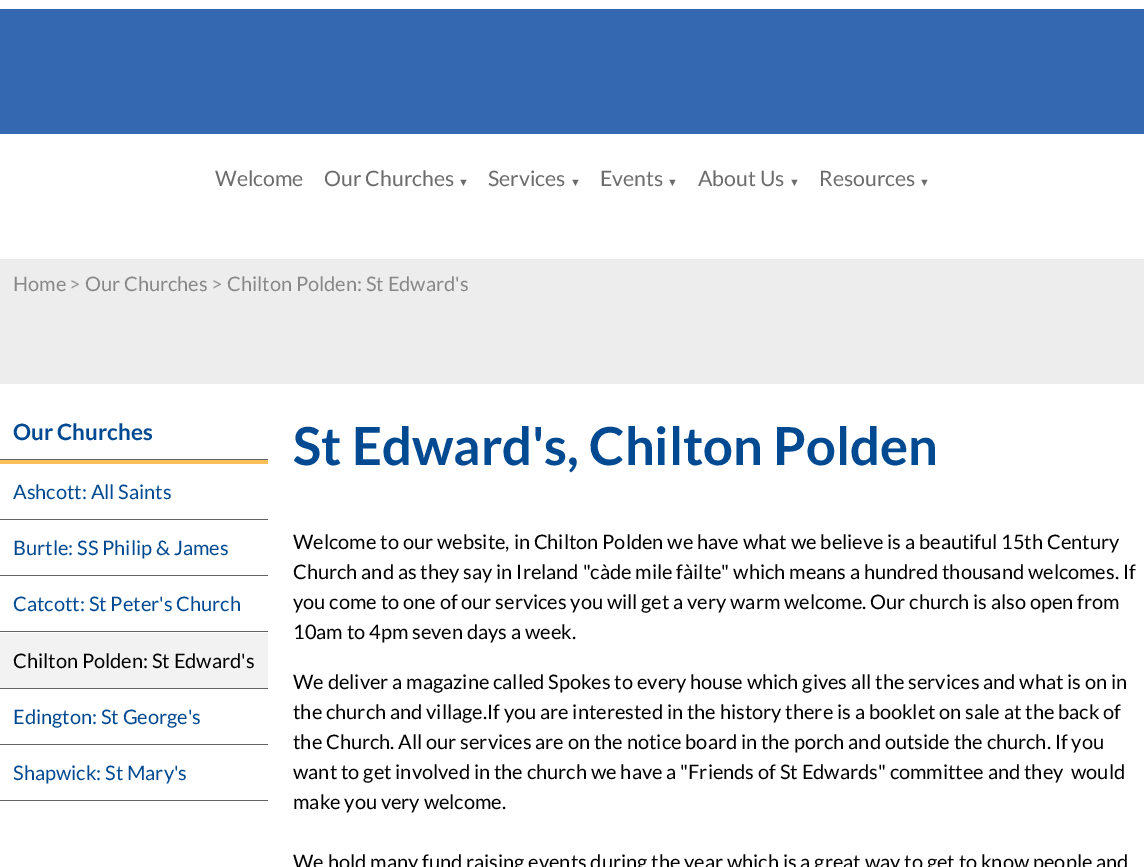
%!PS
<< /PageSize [1144 867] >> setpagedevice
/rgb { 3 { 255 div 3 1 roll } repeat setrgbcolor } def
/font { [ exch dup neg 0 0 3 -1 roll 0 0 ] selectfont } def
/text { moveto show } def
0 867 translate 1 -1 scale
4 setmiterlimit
255 255 255 rgb
0 0 1144 867 rectfill
52 104 177 rgb
0 9 1144 125 rectfill
237 237 237 rgb
0 259 1144 125 rectfill
249 192 89 rgb
0 460 268 4 rectfill
98 98 98 rgb
0 459 268 1 rectfill
0 519 268 1 rectfill
0 575 268 1 rectfill
0 631 268 1 rectfill
242 242 242 rgb
0 633 268 55 rectfill
98 98 98 rgb
0 688 268 1 rectfill
0 744 268 1 rectfill
0 800 268 1 rectfill
/Lato-Regular 21.25 font
108 108 108 rgb
(Welcome) 215 186 text
(Our Churches) 324 186 text
/LiberationSerif-Regular 11 font
(▼) 458 186 text
/Lato-Regular 21.25 font
(Services) 488 186 text
/LiberationSerif-Regular 11 font
(▼) 570 186 text
/Lato-Regular 21.25 font
(Events) 600 186 text
/LiberationSerif-Regular 11 font
(▼) 667 186 text
/Lato-Regular 21.25 font
(About Us) 698 186 text
/LiberationSerif-Regular 11 font
(▼) 789 186 text
/Lato-Regular 21.25 font
(Resources) 819 186 text
/LiberationSerif-Regular 11 font
(▼) 919 186 text
/Lato-Regular 20 font
136 136 136 rgb
(Home) 13 291 text
153 153 153 rgb
(>) 69 291 text
136 136 136 rgb
(Our Churches) 85 291 text
153 153 153 rgb
(>) 211 291 text
136 136 136 rgb
(Chilton Polden: St Edward's) 227 291 text
/Lato-Bold 22.5 font
1 73 145 rgb
(Our Churches) 13 440 text
/Lato-Regular 20 font
(Ashcott: All Saints) 13 499 text
(Burtle: SS Philip & James) 13 555 text
(Catcott: St Peter's Church) 13 611 text
0 0 0 rgb
(Chilton Polden: St Edward's) 13 668 text
1 73 145 rgb
(Edington: St George's) 13 724 text
(Shapwick: St Mary's) 13 780 text
/Lato-Bold 52.5 font
(St Edward's, Chilton Polden) 293 465 text
/Lato-Regular 20 font
0 0 0 rgb
(Welcome to our website, in Chilton Polden we have what we believe is a beautiful 15th Century) 293 549 text
(Church and as they say in Ireland "càde mile fàilte" which means a hundred thousand welcomes. If) 293 579 text
(you come to one of our services you will get a very warm welcome. Our church is also open from) 293 609 text
(10am to 4pm seven days a week.) 293 639 text
(We deliver a magazine called Spokes to every house which gives all the services and what is on in) 293 689 text
(the church and village.If you are interested in the history there is a booklet on sale at the back of) 293 719 text
(the Church. All our services are on the notice board in the porch and outside the church. If you) 293 749 text
(want to get involved in the church we have a "Friends of St Edwards" committee and they  would) 293 779 text
(make you very welcome.) 293 809 text
(We hold many fund raising events during the year which is a great way to get to know people and) 293 869 text
showpage
